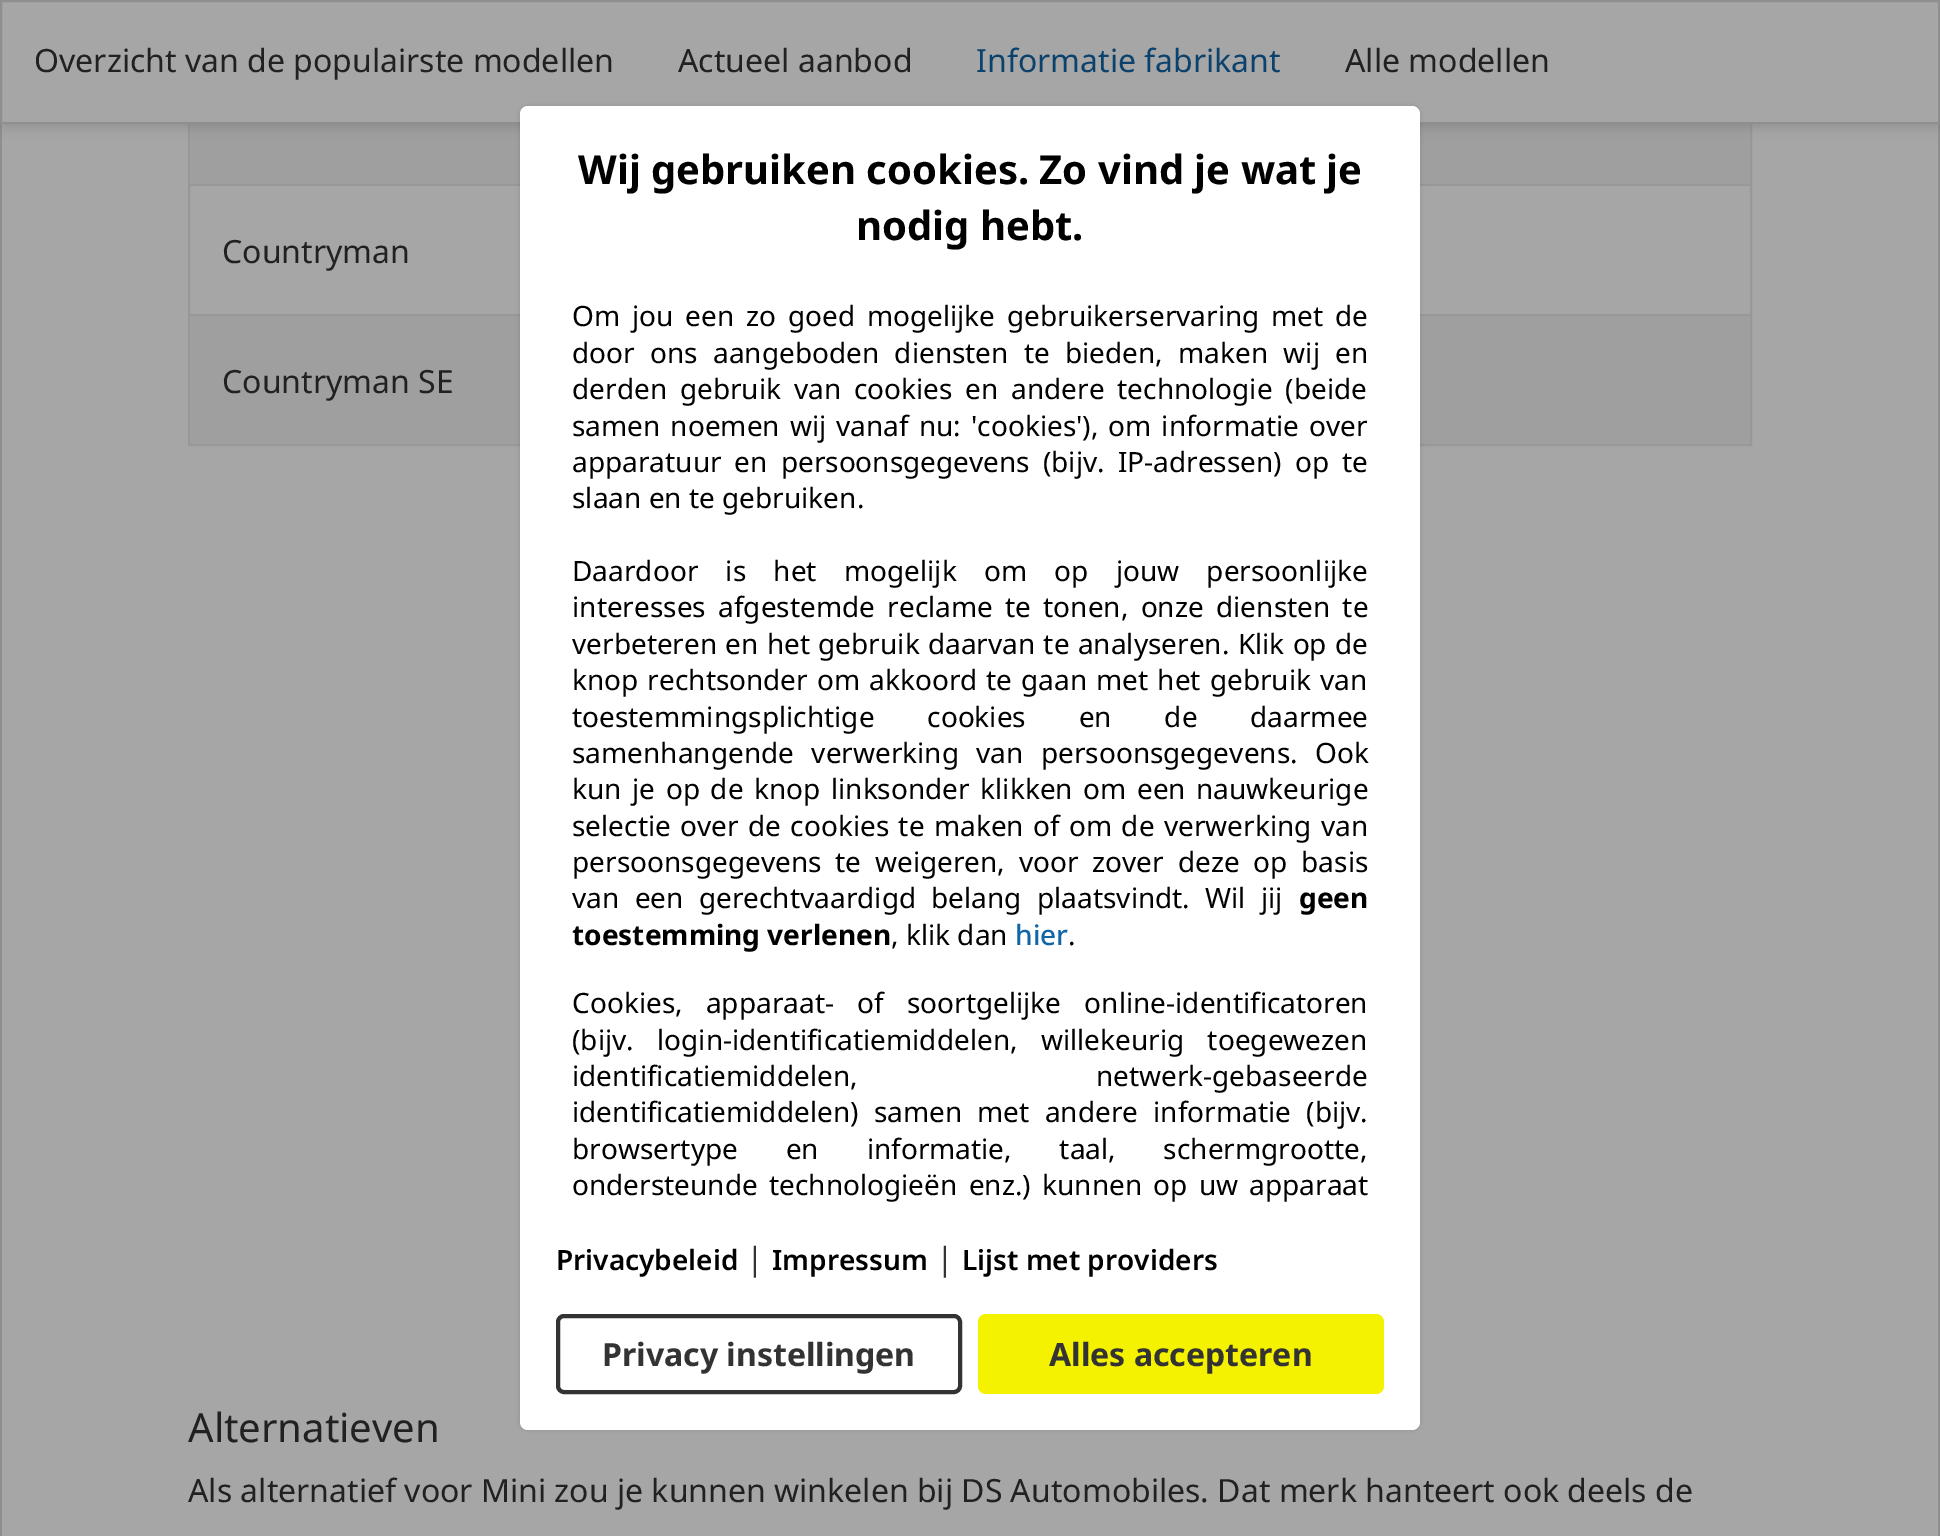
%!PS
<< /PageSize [1940 1536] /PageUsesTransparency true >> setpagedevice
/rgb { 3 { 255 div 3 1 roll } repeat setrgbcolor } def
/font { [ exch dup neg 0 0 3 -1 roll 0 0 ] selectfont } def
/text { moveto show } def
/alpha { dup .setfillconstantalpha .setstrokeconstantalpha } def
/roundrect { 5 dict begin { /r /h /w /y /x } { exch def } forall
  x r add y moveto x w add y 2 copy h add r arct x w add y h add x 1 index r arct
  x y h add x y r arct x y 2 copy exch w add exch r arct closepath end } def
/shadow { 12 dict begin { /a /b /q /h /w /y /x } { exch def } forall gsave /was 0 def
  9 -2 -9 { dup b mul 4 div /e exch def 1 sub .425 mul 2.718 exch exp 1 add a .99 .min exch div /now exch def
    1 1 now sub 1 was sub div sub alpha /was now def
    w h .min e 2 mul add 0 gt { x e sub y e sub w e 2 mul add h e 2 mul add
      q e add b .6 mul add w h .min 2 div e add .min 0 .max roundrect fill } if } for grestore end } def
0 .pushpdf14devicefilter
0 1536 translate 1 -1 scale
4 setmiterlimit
166 166 166 rgb
0 0 1940 1536 rectfill
143 143 143 rgb
1938 124 2 1412 rectfill
0 124 2 1412 rectfill
152 152 152 rgb
2 setlinewidth
189 -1 1562 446 rectstroke
159 159 159 rgb
190 124 1560 60 rectfill
0 0 0 rgb
4 10 1932 116 0 6 0.15 shadow
166 166 166 rgb
1 1 moveto 1938 0 rlineto 0 122 rlineto -1938 0 rlineto closepath gsave fill grestore
143 143 143 rgb
stroke
152 152 152 rgb
190 184 330 2 rectfill
1420 184 330 2 rectfill
190 314 330 2 rectfill
1420 314 330 2 rectfill
159 159 159 rgb
190 316 1560 128 rectfill
0 0 0 rgb
520 106 900 1324 8 2 0.12 shadow
255 255 255 rgb
520 106 900 1324 8 roundrect fill
51 51 51 rgb
4 setlinewidth
558 1316 402 76 6 roundrect stroke
245 242 0 rgb
978 1314 406 80 8 roundrect fill
/NotoSans-Regular 32 font
33 33 33 rgb
(Overzicht van de populairste modellen) 34 72 text
(Actueel aanbod) 678 72 text
11 66 109 rgb
(Informatie fabrikant) 976 72 text
33 33 33 rgb
(Alle modellen) 1345 72 text
(Countryman) 222 263 text
(Countryman SE) 222 393 text
/NotoSans-Regular 40 font
(Alternatieven) 188 1442 text
/NotoSans-Regular 32 font
(Als alternatief voor Mini zou je kunnen winkelen bij DS Automobiles. Dat merk hanteert ook deels de) 188 1502 text
/NotoSans-Bold 40 font
0 0 0 rgb
(Wij gebruiken cookies. Zo vind je wat je) 578 184 text
(nodig hebt.) 856 240 text
/NotoSans-Regular 28 font
572 326 moveto 4.5 0 32 (Om jou een zo goed mogelijke gebruikerservaring met de) widthshow
572 363 moveto 8 0 32 (door ons aangeboden diensten te bieden, maken wij en) widthshow
572 399 moveto 5.5 0 32 (derden gebruik van cookies en andere technologie \(beide) widthshow
572 436 moveto 2.75 0 32 (samen noemen wij vanaf nu: 'cookies'\), om informatie over) widthshow
572 472 moveto 5.75 0 32 (apparatuur en persoonsgegevens \(bijv. IP-adressen\) op te) widthshow
(slaan en te gebruiken.) 572 508 text
572 581 moveto 20 0 32 (Daardoor is het mogelijk om op jouw persoonlijke) widthshow
572 617 moveto 5 0 32 (interesses afgestemde reclame te tonen, onze diensten te) widthshow
572 654 moveto 1 0 32 (verbeteren en het gebruik daarvan te analyseren. Klik op de) widthshow
572 690 moveto 1.75 0 32 (knop rechtsonder om akkoord te gaan met het gebruik van) widthshow
572 727 moveto 45.5 0 32 (toestemmingsplichtige cookies en de daarmee) widthshow
572 763 moveto 10 0 32 (samenhangende verwerking van persoonsgegevens. Ook) widthshow
572 799 moveto 3.25 0 32 (kun je op de knop linksonder klikken om een nauwkeurige) widthshow
572 836 moveto 2.1 0 32 (selectie over de cookies te maken of om de verwerking van) widthshow
572 872 moveto 6.5 0 32 (persoonsgegevens te weigeren, voor zover deze op basis) widthshow
572 908 moveto 8 0 32 (van een gerechtvaardigd belang plaatsvindt. Wil jij) widthshow
/NotoSans-Bold 28 font
(geen) 1299 908 text
(toestemming verlenen) 572 945 text
/NotoSans-Regular 28 font
(, klik dan) 891 945 text
/NotoSans-Medium 28 font
17 102 168 rgb
(hier) 1015 945 text
/NotoSans-Regular 28 font
0 0 0 rgb
(.) 1068 945 text
572 1013 moveto 16 0 32 (Cookies, apparaat- of soortgelijke online-identificatoren) widthshow
572 1050 moveto 16 0 32 (\(bijv. login-identificatiemiddelen, willekeurig toegewezen) widthshow
572 1086 moveto 231 0 32 (identificatiemiddelen, netwerk-gebaseerde) widthshow
572 1122 moveto 8 0 32 (identificatiemiddelen\) samen met andere informatie \(bijv.) widthshow
572 1159 moveto 40.5 0 32 (browsertype en informatie, taal, schermgrootte,) widthshow
572 1195 moveto 4 0 32 (ondersteunde technologieën enz.\) kunnen op uw apparaat) widthshow
/NotoSans-SemiBold 28 font
(Privacybeleid) 556 1270 text
/NotoSans-Regular 32 font
51 51 51 rgb
(|) 746 1270 text
/NotoSans-SemiBold 28 font
0 0 0 rgb
(Impressum) 772 1270 text
/NotoSans-Regular 32 font
51 51 51 rgb
(|) 936 1270 text
/NotoSans-SemiBold 28 font
0 0 0 rgb
(Lijst met providers) 962 1270 text
/NotoSans-Bold 32 font
51 51 51 rgb
(Privacy instellingen) 602 1366 text
(Alles accepteren) 1049 1366 text
.poppdf14devicefilter showpage
